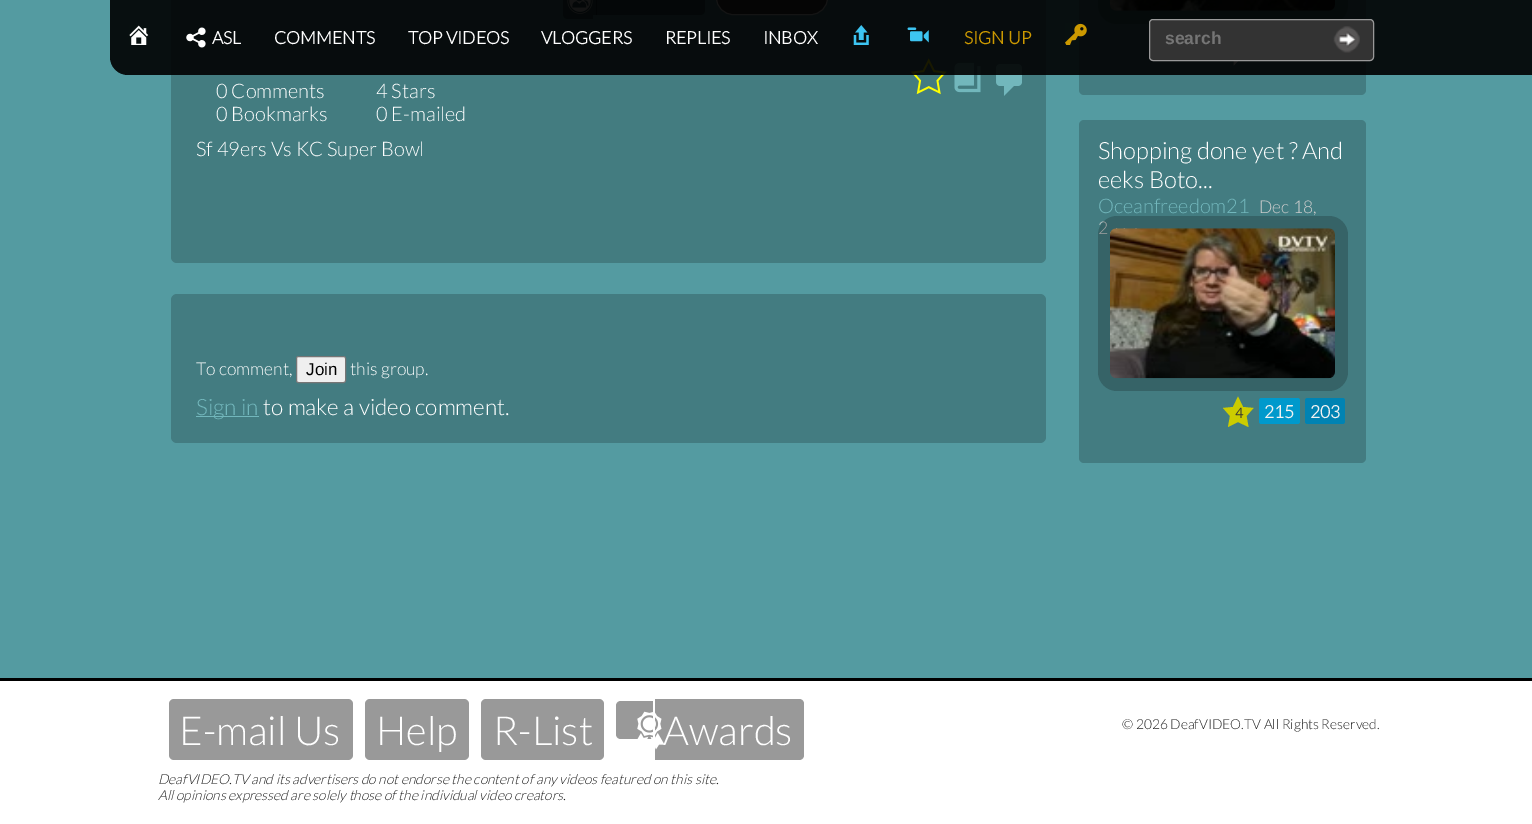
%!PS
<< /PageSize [1532 824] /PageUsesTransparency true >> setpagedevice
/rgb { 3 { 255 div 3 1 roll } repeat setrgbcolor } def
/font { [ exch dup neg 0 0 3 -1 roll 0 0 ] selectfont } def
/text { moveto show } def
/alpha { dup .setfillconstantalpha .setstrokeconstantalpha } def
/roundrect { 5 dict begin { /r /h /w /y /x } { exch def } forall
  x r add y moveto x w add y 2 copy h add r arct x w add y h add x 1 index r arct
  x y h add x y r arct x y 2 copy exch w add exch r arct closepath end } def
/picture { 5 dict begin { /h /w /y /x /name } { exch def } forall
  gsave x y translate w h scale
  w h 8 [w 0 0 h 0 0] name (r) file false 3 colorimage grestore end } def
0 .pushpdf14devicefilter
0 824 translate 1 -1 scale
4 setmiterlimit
84 155 161 rgb
0 0 1532 824 rectfill
67 124 128 rgb
171 -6 875 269 6 roundrect fill
40 74 77 rgb
597 0 18 15 rectfill
568 -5 moveto 25 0 rlineto 0 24 rlineto -25 0 rlineto -3 0 -5 -2 -5 -5 rcurveto 0 -14 rlineto 0 -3 2 -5 5 -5 rcurveto closepath fill
593 0 3 15 rectfill
24 44 46 rgb
596 0 1 15 rectfill
40 74 77 rgb
615 -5 moveto 85 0 rlineto 3 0 5 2 5 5 rcurveto 0 10 rlineto 0 3 -2 5 -5 5 rcurveto -85 0 rlineto closepath fill
(img_07.rgb) 567 0 26 14 picture
48 48 48 rgb
716.5 -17.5 111 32 16.5 roundrect gsave fill grestore
204 204 204 rgb
stroke
(img_08.rgb) 910 58 37 37 picture
(img_09.rgb) 954 62 27 31 picture
(img_10.rgb) 996 64 26 32 picture
67 124 129 rgb
1079 -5 287 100 5 roundrect fill
54 99 103 rgb
1098 -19 250 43 19 roundrect fill
(img_11.rgb) 1110 0 225 11 picture
(img_12.rgb) 1233 61 6 5 picture
0.9 alpha
0 0 0 rgb
110 0 moveto 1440 0 rlineto 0 75 rlineto -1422 0 rlineto -10 0 -18 -8 -18 -18 rcurveto closepath fill
1 alpha
(img_01.rgb) 129 25 20 20 picture
(img_02.rgb) 186 27 20 21 picture
(img_03.rgb) 853 25 16 20 picture
(img_04.rgb) 907 27 22 16 picture
(img_05.rgb) 1065 23 22 22 picture
51 51 51 rgb
1149.5 19.5 224 41 3.5 roundrect gsave fill grestore
153 153 153 rgb
stroke
(img_06.rgb) 1333 26 27 27 picture
67 124 129 rgb
171 294 875 149 6 roundrect fill
239 239 239 rgb
296.5 356.5 49 26 2 roundrect gsave fill grestore
118 118 118 rgb
stroke
114 183 188 rgb
196 416 63 1 rectfill
67 124 129 rgb
1079 120 287 343 5 roundrect fill
204 204 0 rgb
1238 396.5 moveto 5 10.5 rlineto 10.5 1 rlineto -7 8 rlineto 2 11 rlineto -10.5 -5 rlineto -10 5 rlineto 2 -11 rlineto -7 -8 rlineto 10 -1 rlineto closepath fill
0 153 204 rgb
1259 398 41 26 2.5 roundrect fill
0 131 179 rgb
1305 398 40 26 2.5 roundrect fill
0 0 0 rgb
0 678 1532 3 rectfill
255 255 255 rgb
0 681 1532 143 rectfill
153 153 153 rgb
169 699 184 61 5 roundrect fill
365 699 104 61 5 roundrect fill
481 699 123 61 5 roundrect fill
621 701 moveto 32 0 rlineto 0 38 rlineto -32 0 rlineto -3 0 -5 -2 -5 -5 rcurveto 0 -28 rlineto 0 -3 2 -5 5 -5 rcurveto closepath fill
655 699 moveto 144 0 rlineto 3 0 5 2 5 5 rcurveto 0 51 rlineto 0 3 -2 5 -5 5 rcurveto -144 0 rlineto closepath fill
(img_14.rgb) 637 711 28 39 picture
/Lato-Bold 17.5 font
255 255 255 rgb
(ASL) 212 44 text
(COMMENTS) 274 44 text
(TOP VIDEOS) 408 44 text
(VLOGGERS) 541 44 text
(REPLIES) 665 44 text
(INBOX) 763 44 text
204 153 0 rgb
(SIGN UP) 964 44 text
/LiberationSans-Bold 17.5 font
117 117 117 rgb
(search) 1165 44 text
/Lato-Light 20 font
255 255 255 rgb
(0 Comments) 216 98 text
(4 Stars) 376 98 text
(0 E-mailed) 376 121 text
(0 Bookmarks) 216 121 text
(Sf 49ers Vs KC Super Bowl) 196 156 text
/Lato-Light 17.5 font
(To comment,) 196 375 text
/LiberationSans-Regular 17 font
0 0 0 rgb
(Join) 306 375 text
/Lato-Light 17.5 font
255 255 255 rgb
(this group.) 350 375 text
/Lato-Light 22.5 font
114 183 188 rgb
(Sign in) 196 415 text
255 255 255 rgb
(to make a video comment.) 263 415 text
/Lato-Light 23.75 font
(Shopping done yet ? And) 1098 159 text
(eeks Boto...) 1098 188 text
/Lato-Light 20 font
114 183 188 rgb
(Oceanfreedom21) 1098 213 text
/Lato-Light 17.5 font
204 204 204 rgb
(Dec 18,) 1259 213 text
(2) 1098 234 text
0.2 alpha
0 0 0 rgb
1098 216 250 175 19 roundrect fill
1 alpha
(img_13.rgb) 1110 228 225 151 picture
/Lato-Bold 14 font
51 51 51 rgb
(4) 1235 418 text
/Lato-Bold 17.5 font
242 242 242 rgb
(215) 1264 418 text
(203) 1310 418 text
/Lato-Light 40 font
255 255 255 rgb
(E-mail Us) 179 745 text
(Help) 376 745 text
(R-List) 493 745 text
(Awards) 663 745 text
/Lato-LightItalic 13.75 font
34 34 34 rgb
(DeafVIDEO.TV and its advertisers do not endorse the content of any videos featured on this site.) 158 784 text
(All opinions expressed are solely those of the individual video creators.) 158 800 text
/Lato-Light 13.75 font
(© 2026 DeafVIDEO.TV All Rights Reserved.) 1122 729 text
.poppdf14devicefilter showpage
